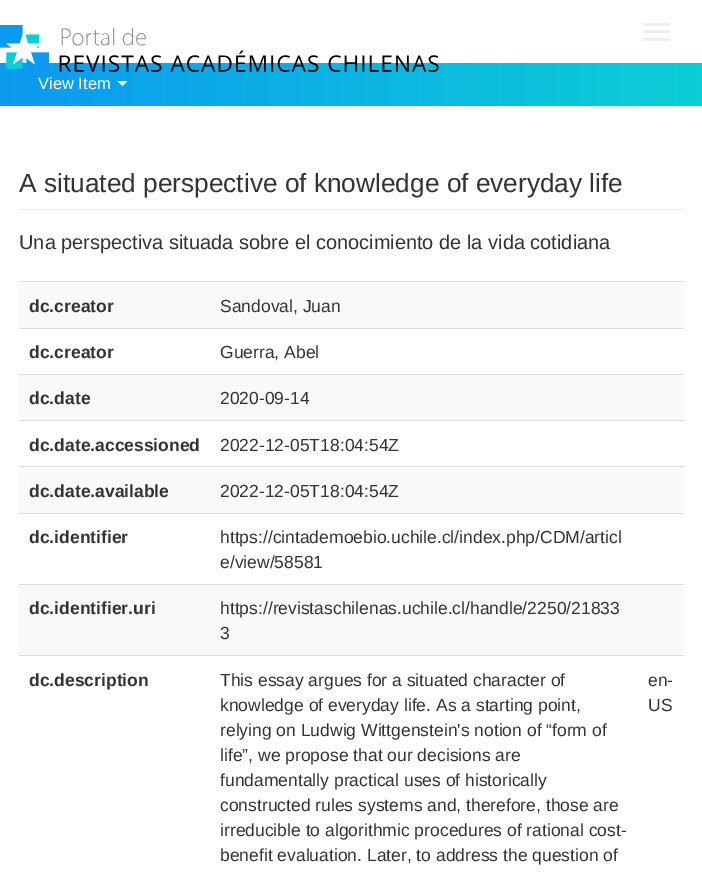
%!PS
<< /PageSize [702 880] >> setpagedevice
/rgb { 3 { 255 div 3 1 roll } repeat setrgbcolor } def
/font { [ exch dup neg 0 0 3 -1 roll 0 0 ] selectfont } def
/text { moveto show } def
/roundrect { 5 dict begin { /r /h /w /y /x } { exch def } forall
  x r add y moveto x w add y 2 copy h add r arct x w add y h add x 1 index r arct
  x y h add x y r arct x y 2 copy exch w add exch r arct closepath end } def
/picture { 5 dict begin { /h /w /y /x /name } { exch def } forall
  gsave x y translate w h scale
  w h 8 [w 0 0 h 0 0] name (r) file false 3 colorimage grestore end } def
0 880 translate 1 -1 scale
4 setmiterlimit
255 255 255 rgb
0 0 702 880 rectfill
gsave 0 63 moveto 702 0 rlineto 0 43 rlineto -702 0 rlineto closepath clip newpath
<< /ShadingType 2 /ColorSpace /DeviceRGB /Coords [0 84 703 84] /Extend [true true] /Function << /FunctionType 2 /Domain [0 1] /C0 [0.047 0.604 0.941] /C1 [0.051 0.808 0.839] /N 1 >> >> shfill grestore
(img_01.rgb) 0 25 439 47 picture
238 238 238 rgb
643 23 27 3 1.5 roundrect fill
643 30 27 3 1.5 roundrect fill
643 38 27 3 1.5 roundrect fill
255 255 255 rgb
117.5 81 moveto 10 0 rlineto -5 5 rlineto closepath fill
238 238 238 rgb
19 209 665 1 rectfill
249 249 249 rgb
19 283 665 45 rectfill
221 221 221 rgb
19 281 665 1 rectfill
19 328 665 1 rectfill
249 249 249 rgb
19 375 665 45 rectfill
221 221 221 rgb
19 374 665 1 rectfill
19 420 665 1 rectfill
249 249 249 rgb
19 468 665 45 rectfill
221 221 221 rgb
19 466 665 1 rectfill
19 513 665 1 rectfill
249 249 249 rgb
19 585 665 70 rectfill
221 221 221 rgb
19 584 665 1 rectfill
19 655 665 1 rectfill
/LiberationSans-Regular 16.5 font
255 255 255 rgb
(View Item) 38 89 text
/LiberationSans-Regular 26.25 font
51 51 51 rgb
(A situated perspective of knowledge of everyday life) 19 192 text
/LiberationSans-Regular 20 font
(Una perspectiva situada sobre el conocimiento de la vida cotidiana) 19 249 text
/LiberationSans-Bold 17.5 font
(dc.creator) 29 312 text
/LiberationSans-Regular 17.5 font
(Sandoval, Juan) 220 312 text
/LiberationSans-Bold 17.5 font
(dc.creator) 29 358 text
/LiberationSans-Regular 17.5 font
(Guerra, Abel) 220 358 text
/LiberationSans-Bold 17.5 font
(dc.date) 29 404 text
/LiberationSans-Regular 17.5 font
(2020-09-14) 220 404 text
/LiberationSans-Bold 17.5 font
(dc.date.accessioned) 29 451 text
/LiberationSans-Regular 17.5 font
(2022-12-05T18:04:54Z) 220 451 text
/LiberationSans-Bold 17.5 font
(dc.date.available) 29 497 text
/LiberationSans-Regular 17.5 font
(2022-12-05T18:04:54Z) 220 497 text
/LiberationSans-Bold 17.5 font
(dc.identifier) 29 543 text
/LiberationSans-Regular 17.5 font
(https://cintademoebio.uchile.cl/index.php/CDM/articl) 220 543 text
(e/view/58581) 220 568 text
/LiberationSans-Bold 17.5 font
(dc.identifier.uri) 29 614 text
/LiberationSans-Regular 17.5 font
(https://revistaschilenas.uchile.cl/handle/2250/21833) 220 614 text
(3) 220 639 text
/LiberationSans-Bold 17.5 font
(dc.description) 29 686 text
/LiberationSans-Regular 17.5 font
(This essay argues for a situated character of) 220 686 text
(knowledge of everyday life. As a starting point,) 220 711 text
(relying on Ludwig Wittgenstein's notion of “form of) 220 736 text
(life”, we propose that our decisions are) 220 761 text
(fundamentally practical uses of historically) 220 786 text
(constructed rules systems and, therefore, those are) 220 811 text
(irreducible to algorithmic procedures of rational cost-) 220 836 text
(benefit evaluation. Later, to address the question of) 220 861 text
(en-) 648 686 text
(US) 648 711 text
showpage
